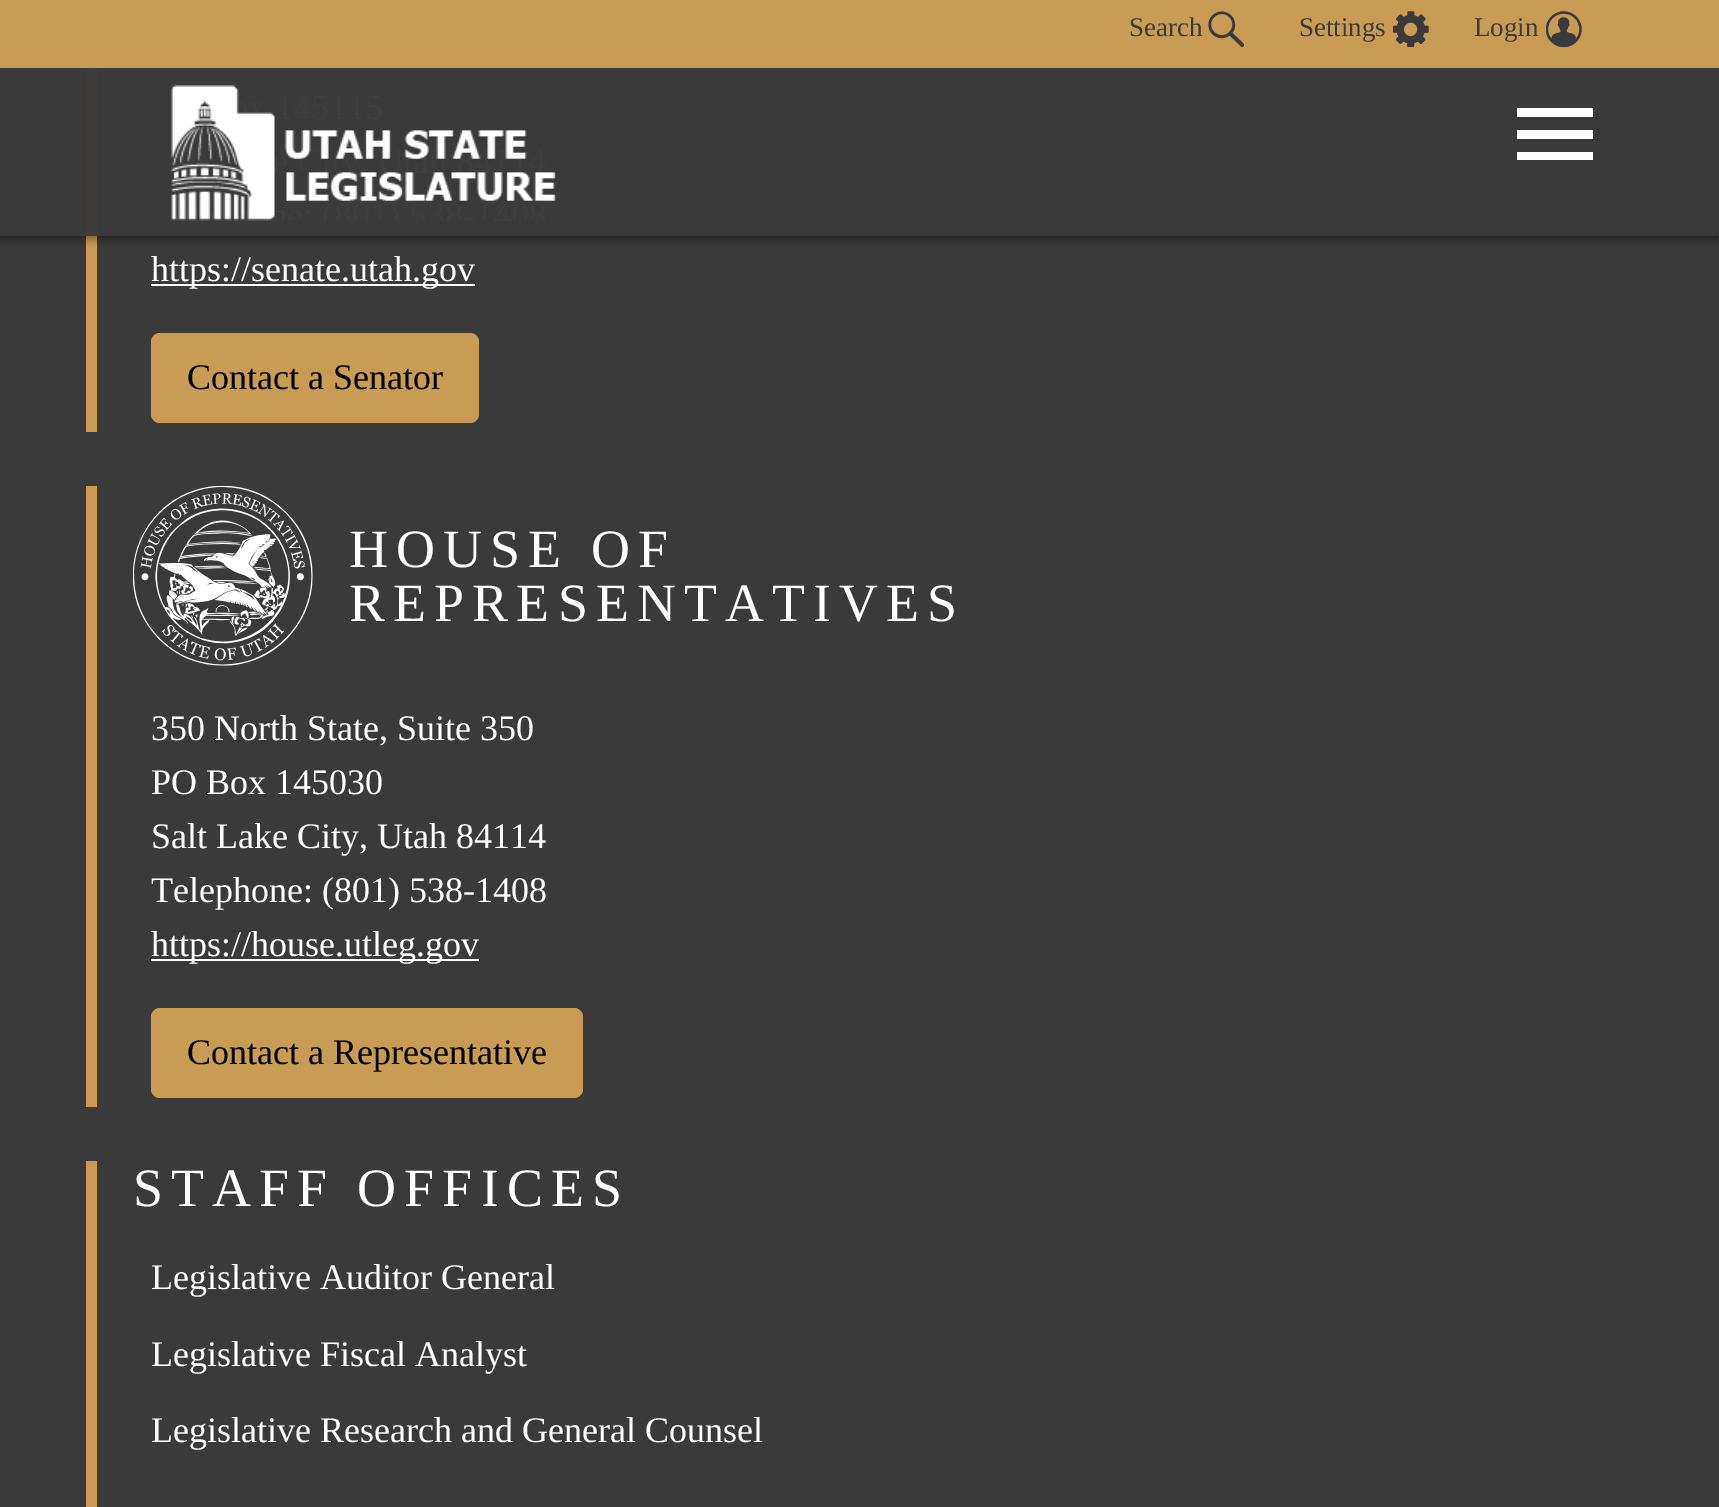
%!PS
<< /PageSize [1719 1507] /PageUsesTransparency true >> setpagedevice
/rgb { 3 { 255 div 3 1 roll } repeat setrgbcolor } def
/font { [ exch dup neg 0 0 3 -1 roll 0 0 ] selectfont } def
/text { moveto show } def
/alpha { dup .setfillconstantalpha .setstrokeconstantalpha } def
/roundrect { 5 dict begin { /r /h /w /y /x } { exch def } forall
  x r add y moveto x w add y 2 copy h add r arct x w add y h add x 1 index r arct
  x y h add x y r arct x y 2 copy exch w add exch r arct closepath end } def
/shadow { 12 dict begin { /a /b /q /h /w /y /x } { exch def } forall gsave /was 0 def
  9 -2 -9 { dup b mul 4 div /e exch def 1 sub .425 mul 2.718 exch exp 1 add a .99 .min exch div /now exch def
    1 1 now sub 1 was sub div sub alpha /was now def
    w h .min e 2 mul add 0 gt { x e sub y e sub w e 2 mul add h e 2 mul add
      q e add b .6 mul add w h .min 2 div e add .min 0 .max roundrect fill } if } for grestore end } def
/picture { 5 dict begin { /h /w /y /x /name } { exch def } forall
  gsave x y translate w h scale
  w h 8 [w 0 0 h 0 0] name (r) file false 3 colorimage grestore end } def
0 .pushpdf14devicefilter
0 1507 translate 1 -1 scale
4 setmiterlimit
58 58 58 rgb
0 0 1719 1507 rectfill
202 155 84 rgb
86 68 11 364 rectfill
gsave
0 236 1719 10 rectclip
0 0 0 rgb
0 2 1719 237 0 4.5 0.4 shadow
grestore
0 0 1719 68 rectfill
(img_01.rgb) 1208 11 36 36 picture
(img_02.rgb) 1393 11 36 36 picture
(img_03.rgb) 1546 11 36 36 picture
0.98 alpha
58 58 58 rgb
86 68 11 168 rectfill
1 alpha
(img_04.rgb) 171 85 385 136 picture
gsave
1517 108 76 52 rectclip
255 255 255 rgb
1516 130 moveto 77 0 rlineto 0 9 rlineto -77 0 rlineto closepath 1516 108 moveto 77 0 rlineto 0 9 rlineto -77 0 rlineto closepath 1516 152 moveto 77 0 rlineto 0 9 rlineto -77 0 rlineto closepath fill
grestore
255 255 255 rgb
151 284 324 2 rectfill
202 155 84 rgb
151 333 328 90 9 roundrect fill
86 486 11 621 rectfill
(img_05.rgb) 133 486 180 180 picture
255 255 255 rgb
151 959 328 2 rectfill
202 155 84 rgb
151 1008 432 90 9 roundrect fill
86 1161 11 346 rectfill
/LiberationSerif-Regular 27 font
58 58 58 rgb
(Search) 1129 36 text
(Settings) 1299 36 text
(Login) 1474 36 text
/LiberationSerif-Regular 36 font
255 255 255 rgb
(https://senate.utah.gov) 151 281 text
0 0 0 rgb
(Contact a Senator) 187 389 text
/LiberationSerif-Regular 54 font
255 255 255 rgb
349 567 moveto 8.1 0 (HOUSE OF) ashow
349 621 moveto 8.1 0 (REPRESENTATIVES) ashow
/LiberationSerif-Regular 36 font
(350 North State, Suite 350) 151 740 text
(PO Box 145030) 151 794 text
(Salt Lake City, Utah 84114) 151 848 text
(Telephone: \(801\) 538-1408) 151 902 text
(https://house.utleg.gov) 151 956 text
0 0 0 rgb
(Contact a Representative) 187 1064 text
/LiberationSerif-Regular 54 font
255 255 255 rgb
133 1206 moveto 8.1 0 (STAFF OFFICES) ashow
/LiberationSerif-Regular 36 font
(Legislative Auditor General) 151 1289 text
(Legislative Fiscal Analyst) 151 1366 text
(Legislative Research and General Counsel) 151 1442 text
.poppdf14devicefilter showpage
